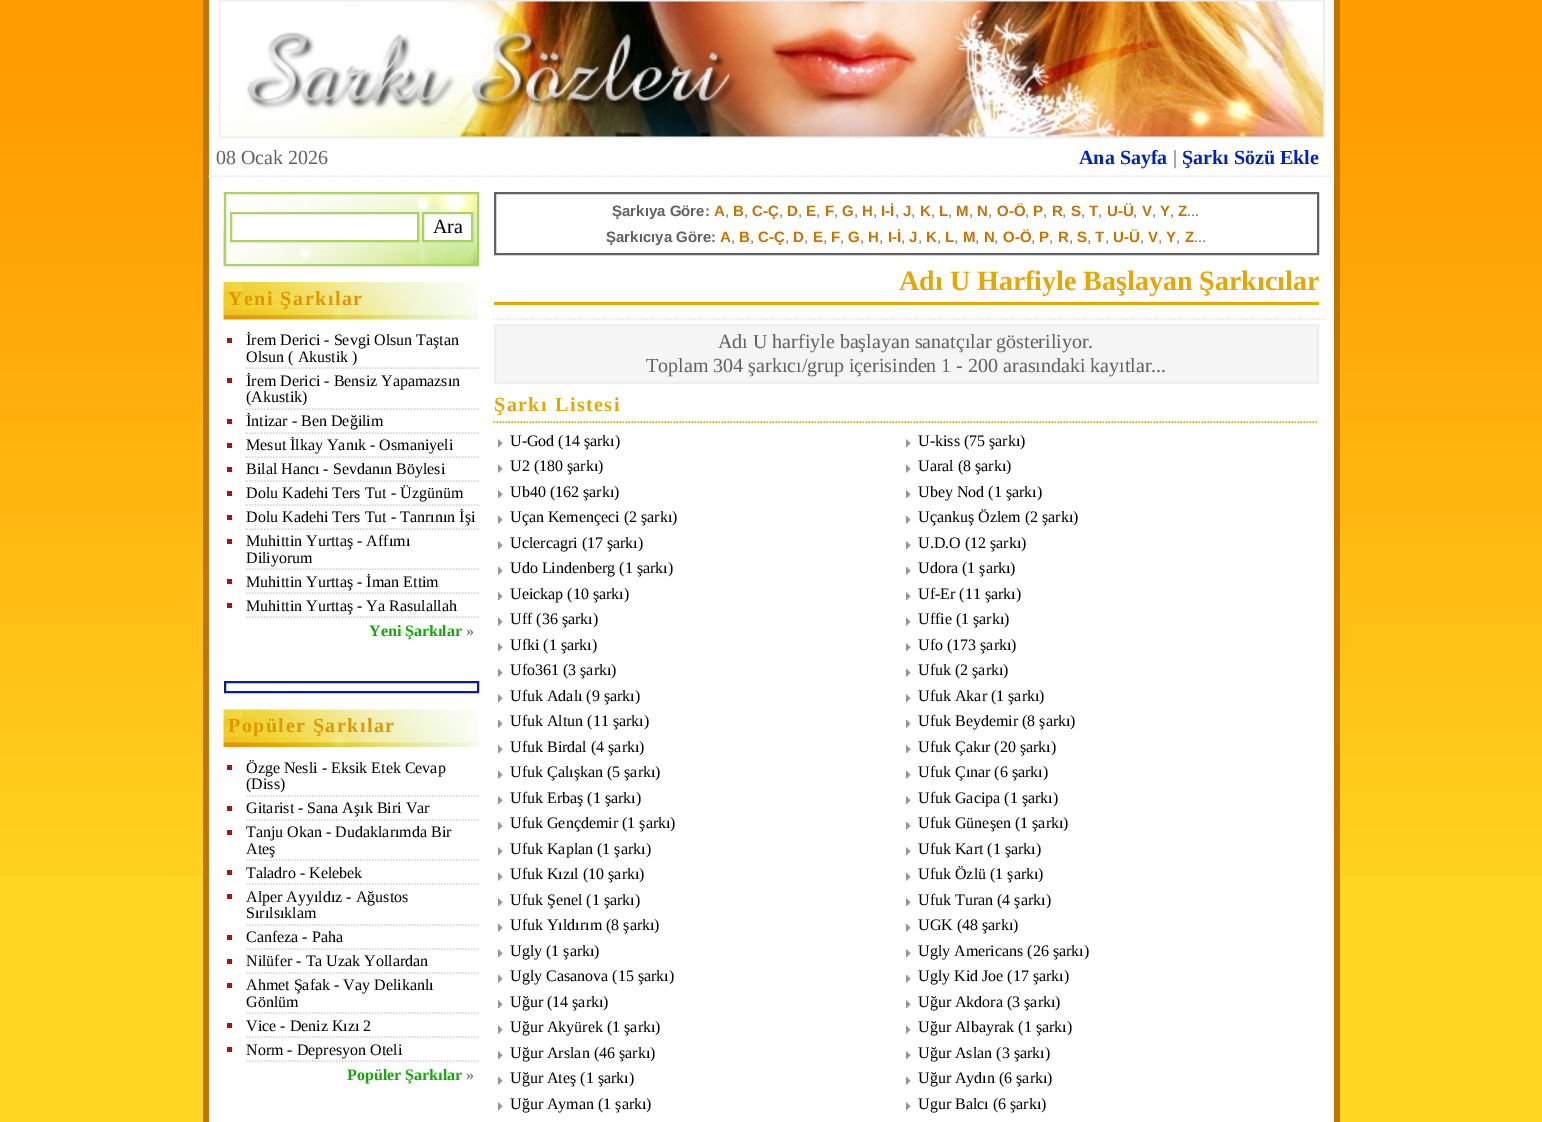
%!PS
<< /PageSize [1542 1122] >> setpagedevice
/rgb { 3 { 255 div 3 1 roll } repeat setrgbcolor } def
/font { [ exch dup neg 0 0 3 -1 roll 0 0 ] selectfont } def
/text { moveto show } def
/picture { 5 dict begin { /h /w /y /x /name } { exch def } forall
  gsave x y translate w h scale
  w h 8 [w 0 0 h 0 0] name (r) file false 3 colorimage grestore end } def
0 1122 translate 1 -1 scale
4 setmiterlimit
255 214 34 rgb
0 0 1542 1122 rectfill
(img_01.rgb) 0 0 1542 876 picture
255 255 255 rgb
209 0 1125 1122 rectfill
191 117 1 rgb
1334 0 6 1122 rectfill
203 0 6 1122 rectfill
238 238 238 rgb
2 setlinewidth
220 1 1104 136 rectstroke
(img_02.rgb) 220 1 1103 136 picture
230 230 230 rgb
1.5 setlinewidth
[1.5 1.5] 0 setdash
208.5 176 moveto 1125 0 rlineto stroke
(img_03.rgb) 223 192 254 74 picture
175 208 101 rgb
2 setlinewidth
[] 0 setdash
225 193 253 72 rectstroke
255 255 255 rgb
231 213 moveto 187 0 rlineto 0 28 rlineto -187 0 rlineto closepath gsave fill grestore
175 208 101 rgb
stroke
255 255 255 rgb
423 213 moveto 49 0 rlineto 0 28 rlineto -49 0 rlineto closepath gsave fill grestore
175 208 101 rgb
stroke
(img_04.rgb) 223 282 256 38 picture
213 213 213 rgb
1.5 setlinewidth
[1.5 1.5] 0 setdash
246 368 moveto 232.5 0 rlineto stroke
163 22 19 rgb
227 338 5 5 rectfill
213 213 213 rgb
246 409 moveto 232.5 0 rlineto stroke
163 22 19 rgb
227 378 5 5 rectfill
213 213 213 rgb
246 433 moveto 232.5 0 rlineto stroke
163 22 19 rgb
227 419 5 5 rectfill
213 213 213 rgb
246 457 moveto 232.5 0 rlineto stroke
163 22 19 rgb
227 443 5 5 rectfill
213 213 213 rgb
246 481 moveto 232.5 0 rlineto stroke
163 22 19 rgb
227 467 5 5 rectfill
213 213 213 rgb
246 505 moveto 232.5 0 rlineto stroke
163 22 19 rgb
227 491 5 5 rectfill
213 213 213 rgb
246 529 moveto 232.5 0 rlineto stroke
163 22 19 rgb
227 515 5 5 rectfill
213 213 213 rgb
246 569 moveto 232.5 0 rlineto stroke
163 22 19 rgb
227 539 5 5 rectfill
213 213 213 rgb
246 593 moveto 232.5 0 rlineto stroke
163 22 19 rgb
227 579 5 5 rectfill
213 213 213 rgb
246 617 moveto 232.5 0 rlineto stroke
163 22 19 rgb
227 603 5 5 rectfill
13 32 127 rgb
2 setlinewidth
[] 0 setdash
225 682 253 10 rectstroke
(img_05.rgb) 223 709 256 38 picture
213 213 213 rgb
1.5 setlinewidth
[1.5 1.5] 0 setdash
246 796 moveto 232.5 0 rlineto stroke
163 22 19 rgb
227 765 5 5 rectfill
213 213 213 rgb
246 820 moveto 232.5 0 rlineto stroke
163 22 19 rgb
227 806 5 5 rectfill
213 213 213 rgb
246 860 moveto 232.5 0 rlineto stroke
163 22 19 rgb
227 830 5 5 rectfill
213 213 213 rgb
246 884 moveto 232.5 0 rlineto stroke
163 22 19 rgb
227 870 5 5 rectfill
213 213 213 rgb
246 925 moveto 232.5 0 rlineto stroke
163 22 19 rgb
227 894 5 5 rectfill
213 213 213 rgb
246 949 moveto 232.5 0 rlineto stroke
163 22 19 rgb
227 935 5 5 rectfill
213 213 213 rgb
246 973 moveto 232.5 0 rlineto stroke
163 22 19 rgb
227 959 5 5 rectfill
213 213 213 rgb
246 1013 moveto 232.5 0 rlineto stroke
163 22 19 rgb
227 983 5 5 rectfill
213 213 213 rgb
246 1037 moveto 232.5 0 rlineto stroke
163 22 19 rgb
227 1023 5 5 rectfill
213 213 213 rgb
246 1061 moveto 232.5 0 rlineto stroke
163 22 19 rgb
227 1047 5 5 rectfill
97 97 97 rgb
2 setlinewidth
[] 0 setdash
495 193 823 61 rectstroke
229 167 1 rgb
494 302 825 3 rectfill
230 230 230 rgb
1.5 setlinewidth
[1.5 1.5] 0 setdash
493.5 319 moveto 832.5 0 rlineto stroke
245 245 245 rgb
495 325 moveto 823 0 rlineto 0 58 rlineto -823 0 rlineto closepath gsave fill grestore
238 238 238 rgb
2 setlinewidth
[] 0 setdash
stroke
229 167 1 rgb
1.5 setlinewidth
[1.5 1.5] 0 setdash
493.5 422 moveto 825 0 rlineto stroke
(img_06.rgb) 498 439 5 8 picture
(img_07.rgb) 906 439 5 8 picture
(img_08.rgb) 498 465 5 8 picture
(img_09.rgb) 906 465 5 8 picture
(img_06.rgb) 498 490 5 8 picture
(img_07.rgb) 906 490 5 8 picture
(img_08.rgb) 498 516 5 8 picture
(img_09.rgb) 906 516 5 8 picture
(img_06.rgb) 498 541 5 8 picture
(img_07.rgb) 906 541 5 8 picture
(img_08.rgb) 498 567 5 8 picture
(img_09.rgb) 906 567 5 8 picture
(img_06.rgb) 498 592 5 8 picture
(img_07.rgb) 906 592 5 8 picture
(img_08.rgb) 498 618 5 8 picture
(img_09.rgb) 906 618 5 8 picture
(img_06.rgb) 498 643 5 8 picture
(img_07.rgb) 906 643 5 8 picture
(img_08.rgb) 498 669 5 8 picture
(img_09.rgb) 906 669 5 8 picture
(img_06.rgb) 498 694 5 8 picture
(img_07.rgb) 906 694 5 8 picture
(img_08.rgb) 498 720 5 8 picture
(img_09.rgb) 906 720 5 8 picture
(img_06.rgb) 498 745 5 8 picture
(img_07.rgb) 906 745 5 8 picture
(img_08.rgb) 498 771 5 8 picture
(img_09.rgb) 906 771 5 8 picture
(img_06.rgb) 498 796 5 8 picture
(img_07.rgb) 906 796 5 8 picture
(img_08.rgb) 498 822 5 8 picture
(img_09.rgb) 906 822 5 8 picture
(img_06.rgb) 498 847 5 8 picture
(img_07.rgb) 906 847 5 8 picture
(img_08.rgb) 498 873 5 8 picture
(img_09.rgb) 906 873 5 8 picture
(img_06.rgb) 498 898 5 8 picture
(img_07.rgb) 906 898 5 8 picture
(img_08.rgb) 498 924 5 8 picture
(img_09.rgb) 906 924 5 8 picture
(img_06.rgb) 498 949 5 8 picture
(img_07.rgb) 906 949 5 8 picture
(img_08.rgb) 498 975 5 8 picture
(img_09.rgb) 906 975 5 8 picture
(img_06.rgb) 498 1000 5 8 picture
(img_07.rgb) 906 1000 5 8 picture
(img_08.rgb) 498 1026 5 8 picture
(img_09.rgb) 906 1026 5 8 picture
(img_06.rgb) 498 1051 5 8 picture
(img_07.rgb) 906 1051 5 8 picture
(img_08.rgb) 498 1077 5 8 picture
(img_09.rgb) 906 1077 5 8 picture
(img_06.rgb) 498 1102 5 8 picture
(img_07.rgb) 906 1102 5 8 picture
/LiberationSerif-Regular 20 font
97 97 97 rgb
(08 Ocak 2026) 216 164 text
/LiberationSerif-Bold 20 font
3 33 187 rgb
(Ana Sayfa) 1079 164 text
/LiberationSerif-Regular 20 font
97 97 97 rgb
(|) 1173 164 text
/LiberationSerif-Bold 20 font
3 33 187 rgb
(Şarkı Sözü Ekle) 1182 164 text
/LiberationSerif-Regular 20 font
0 0 0 rgb
(Ara) 433 233 text
/LiberationSerif-Bold 20 font
223 151 4 rgb
228 305 moveto 1.5 0 (Yeni Şarkılar) ashow
/LiberationSerif-Regular 16 font
0 0 0 rgb
(İrem Derici - Sevgi Olsun Taştan) 246 345 text
(Olsun \( Akustik \)) 246 362 text
(İrem Derici - Bensiz Yapamazsın) 246 386 text
(\(Akustik\)) 246 402 text
(İntizar - Ben Değilim) 246 426 text
(Mesut İlkay Yanık - Osmaniyeli) 246 450 text
(Bilal Hancı - Sevdanın Böylesi) 246 474 text
(Dolu Kadehi Ters Tut - Üzgünüm) 246 498 text
(Dolu Kadehi Ters Tut - Tanrının İşi) 246 522 text
(Muhittin Yurttaş - Affımı) 246 546 text
(Diliyorum) 246 563 text
(Muhittin Yurttaş - İman Ettim) 246 587 text
(Muhittin Yurttaş - Ya Rasulallah) 246 611 text
/LiberationSerif-Bold 16 font
20 167 5 rgb
(Yeni Şarkılar) 369 636 text
/LiberationSerif-Regular 16 font
97 97 97 rgb
(») 466 636 text
/LiberationSerif-Bold 20 font
223 151 4 rgb
228 732 moveto 1.5 0 (Popüler Şarkılar) ashow
/LiberationSerif-Regular 16 font
0 0 0 rgb
(Özge Nesli - Eksik Etek Cevap) 246 773 text
(\(Diss\)) 246 789 text
(Gitarist - Sana Aşık Biri Var) 246 813 text
(Tanju Okan - Dudaklarımda Bir) 246 837 text
(Ateş) 246 854 text
(Taladro - Kelebek) 246 878 text
(Alper Ayyıldız - Ağustos) 246 902 text
(Sırılsıklam) 246 918 text
(Canfeza - Paha) 246 942 text
(Nilüfer - Ta Uzak Yollardan) 246 966 text
(Ahmet Şafak - Vay Delikanlı) 246 990 text
(Gönlüm) 246 1007 text
(Vice - Deniz Kızı 2) 246 1031 text
(Norm - Depresyon Oteli) 246 1055 text
/LiberationSerif-Bold 16 font
20 167 5 rgb
(Popüler Şarkılar) 347 1080 text
/LiberationSerif-Regular 16 font
97 97 97 rgb
(») 466 1080 text
/LiberationSans-Bold 15 font
(Şarkıya Göre:) 612 216 text
195 116 3 rgb
(A) 714 216 text
/LiberationSans-Regular 15 font
97 97 97 rgb
(,) 725 216 text
/LiberationSans-Bold 15 font
195 116 3 rgb
(B) 733 216 text
/LiberationSans-Regular 15 font
97 97 97 rgb
(,) 744 216 text
/LiberationSans-Bold 15 font
195 116 3 rgb
(C-Ç) 752 216 text
/LiberationSans-Regular 15 font
97 97 97 rgb
(,) 779 216 text
/LiberationSans-Bold 15 font
195 116 3 rgb
(D) 787 216 text
/LiberationSans-Regular 15 font
97 97 97 rgb
(,) 798 216 text
/LiberationSans-Bold 15 font
195 116 3 rgb
(E) 806 216 text
/LiberationSans-Regular 15 font
97 97 97 rgb
(,) 816 216 text
/LiberationSans-Bold 15 font
195 116 3 rgb
(F) 825 216 text
/LiberationSans-Regular 15 font
97 97 97 rgb
(,) 834 216 text
/LiberationSans-Bold 15 font
195 116 3 rgb
(G) 842 216 text
/LiberationSans-Regular 15 font
97 97 97 rgb
(,) 854 216 text
/LiberationSans-Bold 15 font
195 116 3 rgb
(H) 862 216 text
/LiberationSans-Regular 15 font
97 97 97 rgb
(,) 873 216 text
/LiberationSans-Bold 15 font
195 116 3 rgb
(I-İ) 881 216 text
/LiberationSans-Regular 15 font
97 97 97 rgb
(,) 895 216 text
/LiberationSans-Bold 15 font
195 116 3 rgb
(J) 903 216 text
/LiberationSans-Regular 15 font
97 97 97 rgb
(,) 911 216 text
/LiberationSans-Bold 15 font
195 116 3 rgb
(K) 920 216 text
/LiberationSans-Regular 15 font
97 97 97 rgb
(,) 931 216 text
/LiberationSans-Bold 15 font
195 116 3 rgb
(L) 939 216 text
/LiberationSans-Regular 15 font
97 97 97 rgb
(,) 948 216 text
/LiberationSans-Bold 15 font
195 116 3 rgb
(M) 956 216 text
/LiberationSans-Regular 15 font
97 97 97 rgb
(,) 969 216 text
/LiberationSans-Bold 15 font
195 116 3 rgb
(N) 977 216 text
/LiberationSans-Regular 15 font
97 97 97 rgb
(,) 988 216 text
/LiberationSans-Bold 15 font
195 116 3 rgb
(O-Ö) 997 216 text
/LiberationSans-Regular 15 font
97 97 97 rgb
(,) 1025 216 text
/LiberationSans-Bold 15 font
195 116 3 rgb
(P) 1033 216 text
/LiberationSans-Regular 15 font
97 97 97 rgb
(,) 1043 216 text
/LiberationSans-Bold 15 font
195 116 3 rgb
(R) 1052 216 text
/LiberationSans-Regular 15 font
97 97 97 rgb
(,) 1062 216 text
/LiberationSans-Bold 15 font
195 116 3 rgb
(S) 1071 216 text
/LiberationSans-Regular 15 font
97 97 97 rgb
(,) 1081 216 text
/LiberationSans-Bold 15 font
195 116 3 rgb
(T) 1089 216 text
/LiberationSans-Regular 15 font
97 97 97 rgb
(,) 1098 216 text
/LiberationSans-Bold 15 font
195 116 3 rgb
(U-Ü) 1107 216 text
/LiberationSans-Regular 15 font
97 97 97 rgb
(,) 1133 216 text
/LiberationSans-Bold 15 font
195 116 3 rgb
(V) 1142 216 text
/LiberationSans-Regular 15 font
97 97 97 rgb
(,) 1152 216 text
/LiberationSans-Bold 15 font
195 116 3 rgb
(Y) 1160 216 text
/LiberationSans-Regular 15 font
97 97 97 rgb
(,) 1170 216 text
/LiberationSans-Bold 15 font
195 116 3 rgb
(Z) 1178 216 text
/LiberationSans-Regular 15 font
97 97 97 rgb
(...) 1187 216 text
/LiberationSans-Bold 15 font
(Şarkıcıya Göre:) 606 242 text
195 116 3 rgb
(A) 720 242 text
/LiberationSans-Regular 15 font
97 97 97 rgb
(,) 731 242 text
/LiberationSans-Bold 15 font
195 116 3 rgb
(B) 739 242 text
/LiberationSans-Regular 15 font
97 97 97 rgb
(,) 750 242 text
/LiberationSans-Bold 15 font
195 116 3 rgb
(C-Ç) 758 242 text
/LiberationSans-Regular 15 font
97 97 97 rgb
(,) 785 242 text
/LiberationSans-Bold 15 font
195 116 3 rgb
(D) 793 242 text
/LiberationSans-Regular 15 font
97 97 97 rgb
(,) 804 242 text
/LiberationSans-Bold 15 font
195 116 3 rgb
(E) 813 242 text
/LiberationSans-Regular 15 font
97 97 97 rgb
(,) 823 242 text
/LiberationSans-Bold 15 font
195 116 3 rgb
(F) 831 242 text
/LiberationSans-Regular 15 font
97 97 97 rgb
(,) 840 242 text
/LiberationSans-Bold 15 font
195 116 3 rgb
(G) 848 242 text
/LiberationSans-Regular 15 font
97 97 97 rgb
(,) 860 242 text
/LiberationSans-Bold 15 font
195 116 3 rgb
(H) 868 242 text
/LiberationSans-Regular 15 font
97 97 97 rgb
(,) 879 242 text
/LiberationSans-Bold 15 font
195 116 3 rgb
(I-İ) 888 242 text
/LiberationSans-Regular 15 font
97 97 97 rgb
(,) 901 242 text
/LiberationSans-Bold 15 font
195 116 3 rgb
(J) 909 242 text
/LiberationSans-Regular 15 font
97 97 97 rgb
(,) 918 242 text
/LiberationSans-Bold 15 font
195 116 3 rgb
(K) 926 242 text
/LiberationSans-Regular 15 font
97 97 97 rgb
(,) 937 242 text
/LiberationSans-Bold 15 font
195 116 3 rgb
(L) 945 242 text
/LiberationSans-Regular 15 font
97 97 97 rgb
(,) 954 242 text
/LiberationSans-Bold 15 font
195 116 3 rgb
(M) 963 242 text
/LiberationSans-Regular 15 font
97 97 97 rgb
(,) 975 242 text
/LiberationSans-Bold 15 font
195 116 3 rgb
(N) 984 242 text
/LiberationSans-Regular 15 font
97 97 97 rgb
(,) 994 242 text
/LiberationSans-Bold 15 font
195 116 3 rgb
(O-Ö) 1003 242 text
/LiberationSans-Regular 15 font
97 97 97 rgb
(,) 1031 242 text
/LiberationSans-Bold 15 font
195 116 3 rgb
(P) 1039 242 text
/LiberationSans-Regular 15 font
97 97 97 rgb
(,) 1049 242 text
/LiberationSans-Bold 15 font
195 116 3 rgb
(R) 1058 242 text
/LiberationSans-Regular 15 font
97 97 97 rgb
(,) 1069 242 text
/LiberationSans-Bold 15 font
195 116 3 rgb
(S) 1077 242 text
/LiberationSans-Regular 15 font
97 97 97 rgb
(,) 1087 242 text
/LiberationSans-Bold 15 font
195 116 3 rgb
(T) 1095 242 text
/LiberationSans-Regular 15 font
97 97 97 rgb
(,) 1105 242 text
/LiberationSans-Bold 15 font
195 116 3 rgb
(U-Ü) 1113 242 text
/LiberationSans-Regular 15 font
97 97 97 rgb
(,) 1140 242 text
/LiberationSans-Bold 15 font
195 116 3 rgb
(V) 1148 242 text
/LiberationSans-Regular 15 font
97 97 97 rgb
(,) 1158 242 text
/LiberationSans-Bold 15 font
195 116 3 rgb
(Y) 1166 242 text
/LiberationSans-Regular 15 font
97 97 97 rgb
(,) 1176 242 text
/LiberationSans-Bold 15 font
195 116 3 rgb
(Z) 1185 242 text
/LiberationSans-Regular 15 font
97 97 97 rgb
(...) 1194 242 text
/LiberationSerif-Bold 28 font
229 167 1 rgb
(Adı U Harfiyle Başlayan Şarkıcılar) 899 290 text
/LiberationSerif-Regular 20 font
97 97 97 rgb
(Adı U harfiyle başlayan sanatçılar gösteriliyor.) 718 348 text
(Toplam 304 şarkıcı/grup içerisinden 1 - 200 arasındaki kayıtlar...) 646 372 text
/LiberationSerif-Bold 20 font
229 167 1 rgb
494 411 moveto 1.5 0 (Şarkı Listesi) ashow
/LiberationSerif-Regular 16 font
0 0 0 rgb
(U-God \(14 şarkı\)) 510 446 text
(U-kiss \(75 şarkı\)) 918 446 text
(U2 \(180 şarkı\)) 510 471 text
(Uaral \(8 şarkı\)) 918 471 text
(Ub40 \(162 şarkı\)) 510 497 text
(Ubey Nod \(1 şarkı\)) 918 497 text
(Uçan Kemençeci \(2 şarkı\)) 510 522 text
(Uçankuş Özlem \(2 şarkı\)) 918 522 text
(Uclercagri \(17 şarkı\)) 510 548 text
(U.D.O \(12 şarkı\)) 918 548 text
(Udo Lindenberg \(1 şarkı\)) 510 573 text
(Udora \(1 şarkı\)) 918 573 text
(Ueickap \(10 şarkı\)) 510 599 text
(Uf-Er \(11 şarkı\)) 918 599 text
(Uff \(36 şarkı\)) 510 624 text
(Uffie \(1 şarkı\)) 918 624 text
(Ufki \(1 şarkı\)) 510 650 text
(Ufo \(173 şarkı\)) 918 650 text
(Ufo361 \(3 şarkı\)) 510 675 text
(Ufuk \(2 şarkı\)) 918 675 text
(Ufuk Adalı \(9 şarkı\)) 510 701 text
(Ufuk Akar \(1 şarkı\)) 918 701 text
(Ufuk Altun \(11 şarkı\)) 510 726 text
(Ufuk Beydemir \(8 şarkı\)) 918 726 text
(Ufuk Birdal \(4 şarkı\)) 510 752 text
(Ufuk Çakır \(20 şarkı\)) 918 752 text
(Ufuk Çalışkan \(5 şarkı\)) 510 777 text
(Ufuk Çınar \(6 şarkı\)) 918 777 text
(Ufuk Erbaş \(1 şarkı\)) 510 803 text
(Ufuk Gacipa \(1 şarkı\)) 918 803 text
(Ufuk Gençdemir \(1 şarkı\)) 510 828 text
(Ufuk Güneşen \(1 şarkı\)) 918 828 text
(Ufuk Kaplan \(1 şarkı\)) 510 854 text
(Ufuk Kart \(1 şarkı\)) 918 854 text
(Ufuk Kızıl \(10 şarkı\)) 510 879 text
(Ufuk Özlü \(1 şarkı\)) 918 879 text
(Ufuk Şenel \(1 şarkı\)) 510 905 text
(Ufuk Turan \(4 şarkı\)) 918 905 text
(Ufuk Yıldırım \(8 şarkı\)) 510 930 text
(UGK \(48 şarkı\)) 918 930 text
(Ugly \(1 şarkı\)) 510 956 text
(Ugly Americans \(26 şarkı\)) 918 956 text
(Ugly Casanova \(15 şarkı\)) 510 981 text
(Ugly Kid Joe \(17 şarkı\)) 918 981 text
(Uğur \(14 şarkı\)) 510 1007 text
(Uğur Akdora \(3 şarkı\)) 918 1007 text
(Uğur Akyürek \(1 şarkı\)) 510 1032 text
(Uğur Albayrak \(1 şarkı\)) 918 1032 text
(Uğur Arslan \(46 şarkı\)) 510 1058 text
(Uğur Aslan \(3 şarkı\)) 918 1058 text
(Uğur Ateş \(1 şarkı\)) 510 1083 text
(Uğur Aydın \(6 şarkı\)) 918 1083 text
(Uğur Ayman \(1 şarkı\)) 510 1109 text
(Ugur Balcı \(6 şarkı\)) 918 1109 text
showpage
